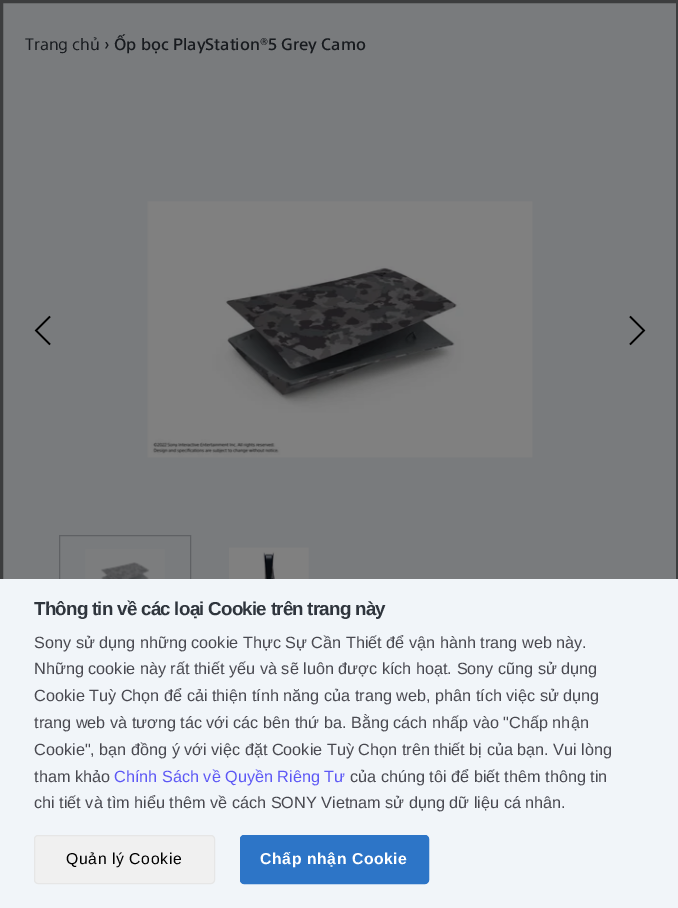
%!PS
<< /PageSize [678 908] /PageUsesTransparency true >> setpagedevice
/rgb { 3 { 255 div 3 1 roll } repeat setrgbcolor } def
/font { [ exch dup neg 0 0 3 -1 roll 0 0 ] selectfont } def
/text { moveto show } def
/alpha { dup .setfillconstantalpha .setstrokeconstantalpha } def
/roundrect { 5 dict begin { /r /h /w /y /x } { exch def } forall
  x r add y moveto x w add y 2 copy h add r arct x w add y h add x 1 index r arct
  x y h add x y r arct x y 2 copy exch w add exch r arct closepath end } def
/picture { 5 dict begin { /h /w /y /x /name } { exch def } forall
  gsave x y translate w h scale
  w h 8 [w 0 0 h 0 0] name (r) file false 3 colorimage grestore end } def
0 .pushpdf14devicefilter
0 908 translate 1 -1 scale
4 setmiterlimit
121 123 125 rgb
0 0 678 908 rectfill
0 0 0 rgb
1.7 setlinewidth
50 344.5 moveto -14 -14 rlineto 14 -14 rlineto stroke
(img_01.rgb) 147 201 386 257 picture
630 316.5 moveto 14 14 rlineto -14 14 rlineto stroke
95 97 100 rgb
1 setlinewidth
59.5 535.5 131 82 rectstroke
(img_02.rgb) 85 549 80 30 picture
(img_03.rgb) 229 547 80 32 picture
0.5 alpha
0 0 0 rgb
3 setlinewidth
1.5 1.5 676 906 rectstroke
1 alpha
241 245 249 rgb
0 579 678 329 rectfill
240 240 240 rgb
34.5 835.5 180 48 3.5 roundrect gsave fill grestore
230 230 230 rgb
1 setlinewidth
stroke
45 117 199 rgb
240.5 835.5 188 48 3.5 roundrect gsave fill grestore
stroke
/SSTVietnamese-Regular 16.25 font
24 27 31 rgb
(Trang chủ) 25 50 text
/SSTVietnamese-Medium 16.25 font
(› Ốp bọc PlayStation®5 Grey Camo) 104 50 text
/LiberationSans-Bold 18.75 font
47 53 61 rgb
34 615 moveto -0.75 0 (Thông tin về các loại Cookie trên trang này) ashow
/LiberationSans-Regular 16.25 font
73 73 80 rgb
(Sony sử dụng những cookie Thực Sự Cần Thiết để vận hành trang web này.) 34 648 text
(Những cookie này rất thiết yếu và sẽ luôn được kích hoạt. Sony cũng sử dụng) 34 674 text
(Cookie Tuỳ Chọn để cải thiện tính năng của trang web, phân tích việc sử dụng) 34 701 text
(trang web và tương tác với các bên thứ ba. Bằng cách nhấp vào "Chấp nhận) 34 728 text
(Cookie", bạn đồng ý với việc đặt Cookie Tuỳ Chọn trên thiết bị của bạn. Vui lòng) 34 755 text
(tham khảo) 34 782 text
93 88 245 rgb
(Chính Sách về Quyền Riêng Tư) 114 782 text
73 73 80 rgb
(của chúng tôi để biết thêm thông tin) 350 782 text
(chi tiết và tìm hiểu thêm về cách SONY Vietnam sử dụng dữ liệu cá nhân.) 34 808 text
/LiberationSans-Regular 15.75 font
0 0 0 rgb
66 864 moveto 0.6 0 (Quản lý Cookie) ashow
/LiberationSans-Bold 15.75 font
255 255 255 rgb
260 864 moveto 0.6 0 (Chấp nhận Cookie) ashow
.poppdf14devicefilter showpage
